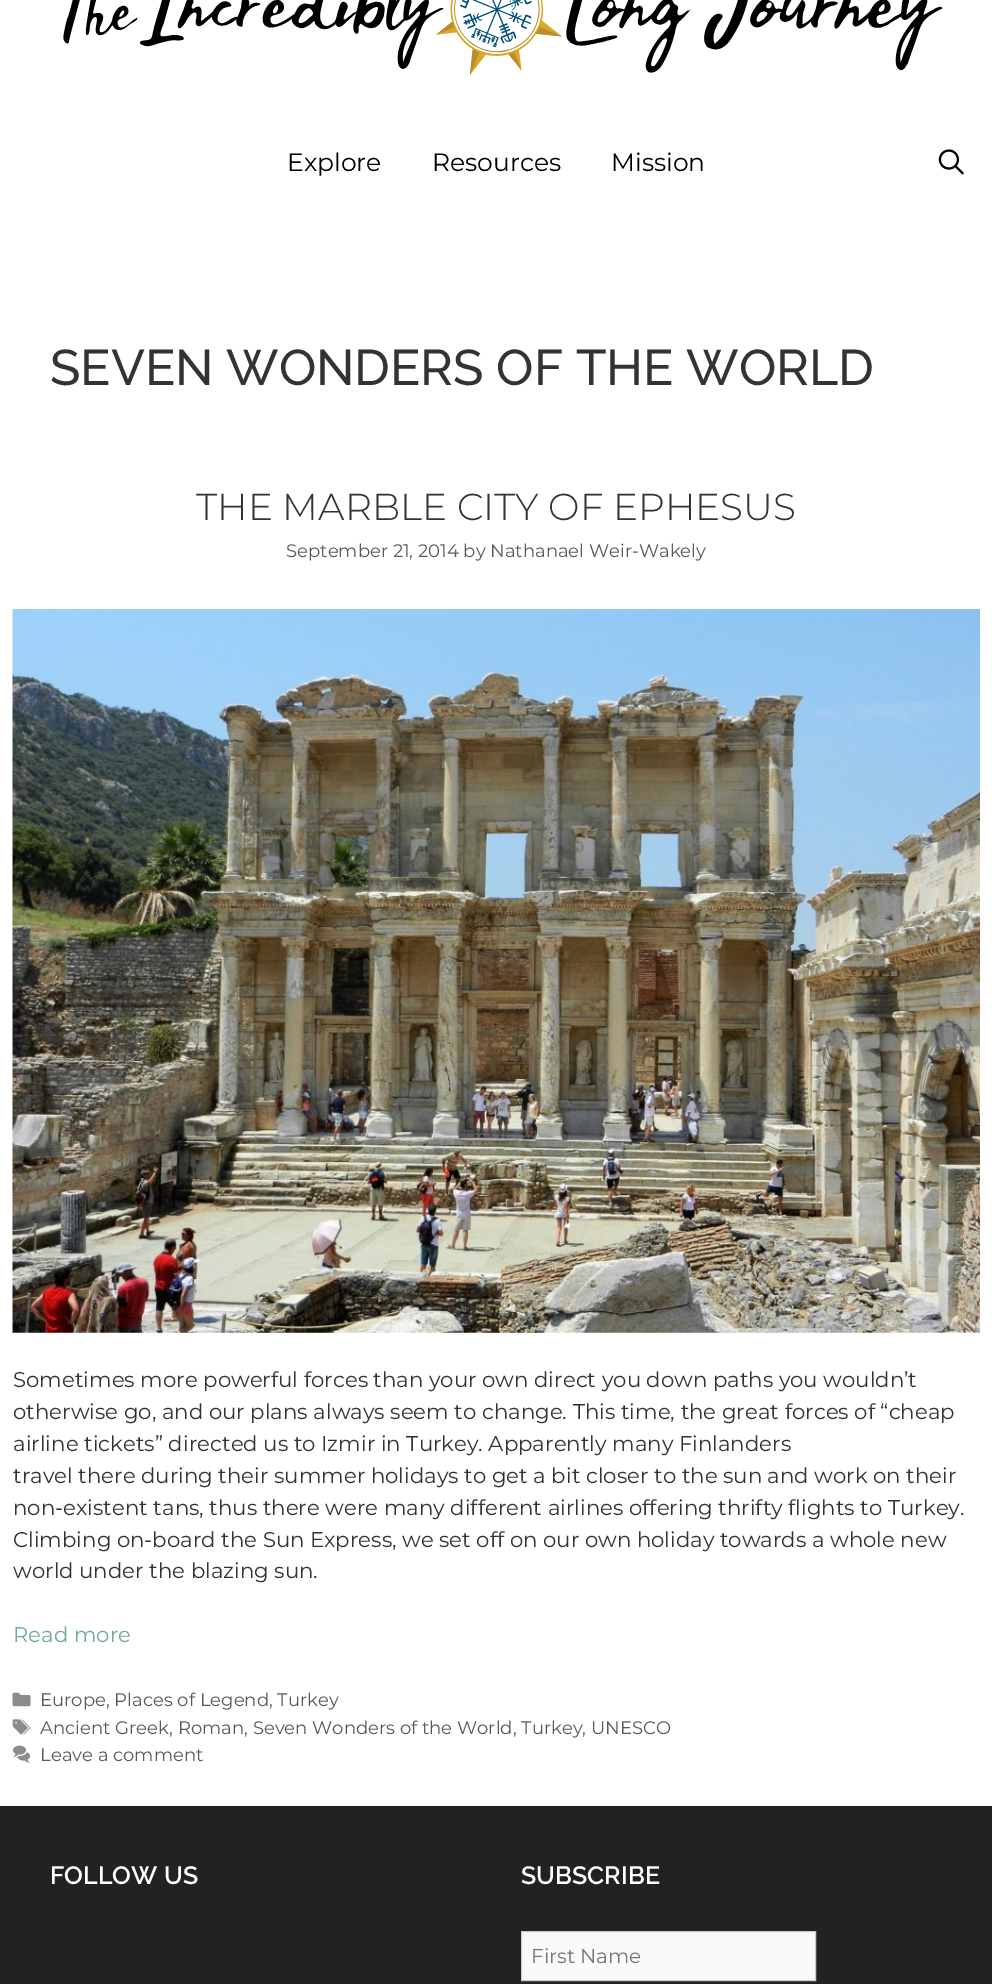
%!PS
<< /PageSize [992 1984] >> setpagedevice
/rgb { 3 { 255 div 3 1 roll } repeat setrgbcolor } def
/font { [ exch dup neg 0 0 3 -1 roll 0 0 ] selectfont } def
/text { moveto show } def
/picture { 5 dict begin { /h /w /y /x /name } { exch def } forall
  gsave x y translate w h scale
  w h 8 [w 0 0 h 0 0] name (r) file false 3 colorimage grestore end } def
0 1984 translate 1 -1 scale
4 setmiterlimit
255 255 255 rgb
0 0 992 1984 rectfill
(img_01.rgb) 63 0 880 75 picture
(img_02.rgb) 938 149 26 26 picture
(img_03.rgb) 12 609 968 724 picture
(img_04.rgb) 12 1692 19 15 picture
(img_05.rgb) 12 1719 19 16 picture
(img_06.rgb) 13 1745 18 19 picture
34 34 34 rgb
0 1806 992 178 rectfill
250 250 250 rgb
521.5 1931.5 moveto 294 0 rlineto 0 49 rlineto -294 0 rlineto closepath gsave fill grestore
204 204 204 rgb
stroke
/Montserrat-Regular 25 font
0 0 0 rgb
(Explore) 287 171 text
(Resources) 432 171 text
(Mission) 611 171 text
/Raleway-Medium 50 font
51 51 51 rgb
(SEVEN WONDERS OF THE WORLD) 50 385 text
/Montserrat-Light 37.5 font
(THE MARBLE CITY OF EPHESUS) 196 520 text
/Montserrat-Regular 18.05 font
89 89 89 rgb
(September 21, 2014 by Nathanael Weir-Wakely) 286 557 text
/Montserrat-Regular 21.25 font
51 51 51 rgb
(Sometimes more powerful forces than your own direct you down paths you wouldn’t) 13 1387 text
(otherwise go, and our plans always seem to change. This time, the great forces of “cheap) 13 1419 text
(airline tickets” directed us to Izmir in Turkey. Apparently many Finlanders) 13 1451 text
(travel there during their summer holidays to get a bit closer to the sun and work on their) 13 1483 text
(non-existent tans, thus there were many different airlines offering thrifty flights to Turkey.) 13 1515 text
(Climbing on-board the Sun Express, we set off on our own holiday towards a whole new) 13 1547 text
(world under the blazing sun.) 13 1578 text
112 169 161 rgb
(Read more) 13 1642 text
/Montserrat-Regular 18.05 font
89 89 89 rgb
(Europe, Places of Legend, Turkey) 40 1706 text
(Ancient Greek, Roman, Seven Wonders of the World, Turkey, UNESCO) 40 1734 text
(Leave a comment) 40 1761 text
/Raleway-SemiBold 25 font
255 255 255 rgb
(FOLLOW US) 50 1884 text
(SUBSCRIBE) 521 1884 text
/Montserrat-Regular 20 font
117 117 117 rgb
(First Name) 531 1963 text
showpage
